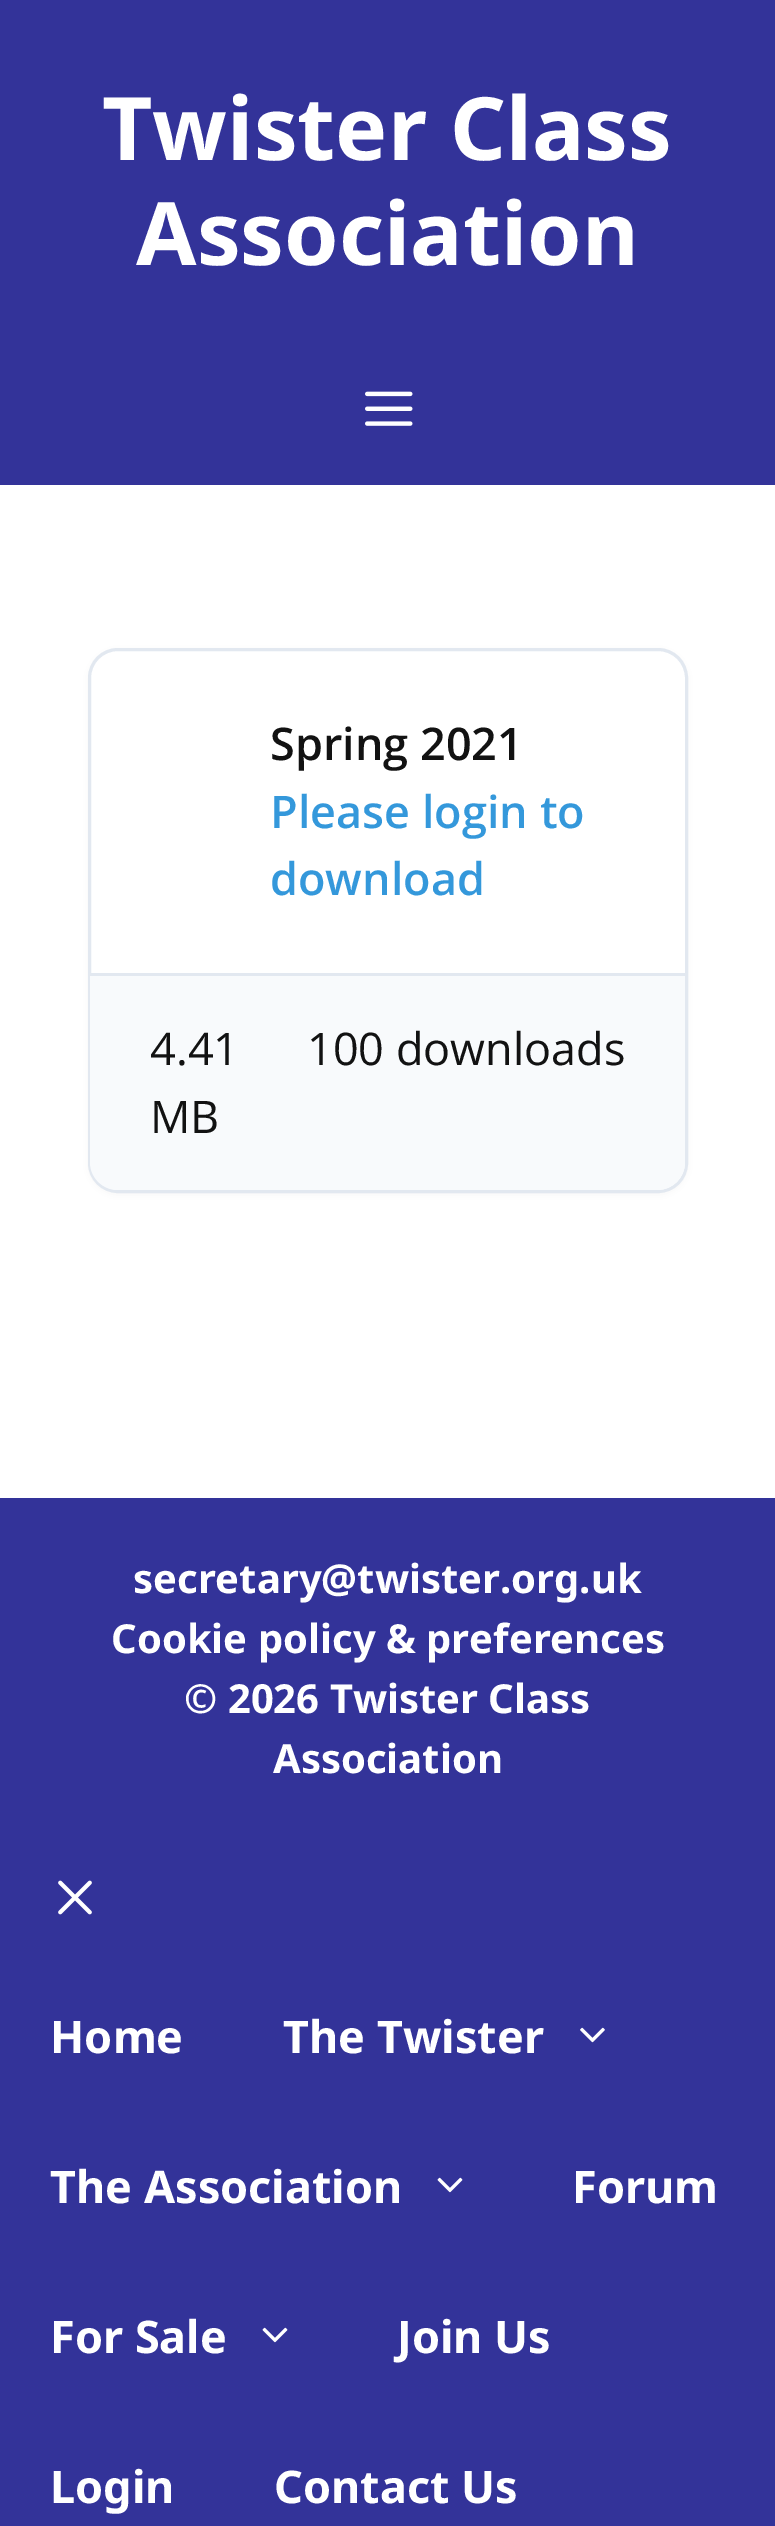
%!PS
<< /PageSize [775 2526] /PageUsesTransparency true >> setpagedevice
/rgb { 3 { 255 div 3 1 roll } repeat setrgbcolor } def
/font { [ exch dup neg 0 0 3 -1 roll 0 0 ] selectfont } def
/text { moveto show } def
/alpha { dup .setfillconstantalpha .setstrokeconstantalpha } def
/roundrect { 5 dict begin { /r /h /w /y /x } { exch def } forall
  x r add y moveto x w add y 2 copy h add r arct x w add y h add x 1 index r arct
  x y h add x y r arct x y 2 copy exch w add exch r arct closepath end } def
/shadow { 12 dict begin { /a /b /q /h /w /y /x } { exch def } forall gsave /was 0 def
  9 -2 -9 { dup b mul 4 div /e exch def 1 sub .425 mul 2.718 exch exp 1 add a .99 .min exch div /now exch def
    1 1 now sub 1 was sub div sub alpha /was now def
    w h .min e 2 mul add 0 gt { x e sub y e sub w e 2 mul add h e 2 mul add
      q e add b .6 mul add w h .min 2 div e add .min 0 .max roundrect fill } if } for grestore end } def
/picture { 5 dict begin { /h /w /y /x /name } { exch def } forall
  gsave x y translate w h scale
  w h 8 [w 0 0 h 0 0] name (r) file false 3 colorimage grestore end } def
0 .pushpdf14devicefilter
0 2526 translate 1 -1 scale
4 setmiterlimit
255 255 255 rgb
0 0 775 2526 rectfill
51 51 153 rgb
0 0 775 485 rectfill
(img_01.rgb) 365 391 48 35 picture
0 0 0 rgb
88 650 600 545 30 4 0.04 shadow
255 255 255 rgb
89.5 649.5 597 542 28.5 roundrect gsave fill grestore
226 232 240 rgb
3 setlinewidth
stroke
248 250 252 rgb
90 973 moveto 595 0 rlineto 0 189 rlineto 0 15.5 -12.5 28 -28 28 rcurveto -539 0 rlineto -15.5 0 -28 -12.5 -28 -28 rcurveto closepath fill
226 232 240 rgb
90 973 595 3 rectfill
51 51 153 rgb
0 1498 775 1028 rectfill
(img_02.rgb) 58 1880 34 35 picture
(img_03.rgb) 580 2027 25 16 picture
(img_04.rgb) 437 2177 26 16 picture
(img_04.rgb) 262 2327 26 16 picture
/NotoSans-Bold 87.5 font
255 255 255 rgb
(Twister Class) 102 160 text
(Association) 136 265 text
/OpenSans-SemiBold 45 font
18 18 18 rgb
(Spring 2021) 270 760 text
52 152 219 rgb
(Please login to) 270 828 text
(download) 270 895 text
/OpenSans-Regular 45 font
18 18 18 rgb
(4.41) 150 1065 text
(100 downloads) 307 1065 text
(MB) 150 1133 text
/NotoSans-Bold 40 font
255 255 255 rgb
(secretary@twister.org.uk) 133 1593 text
(Cookie policy & preferences) 111 1653 text
(© 2026 Twister Class) 184 1713 text
(Association) 273 1773 text
/NotoSans-Bold 45 font
(Home) 50 2053 text
(The Twister) 283 2053 text
(The Association) 50 2203 text
(Forum) 572 2203 text
(For Sale) 50 2353 text
(Join Us) 397 2353 text
(Login) 50 2503 text
(Contact Us) 274 2503 text
.poppdf14devicefilter showpage
